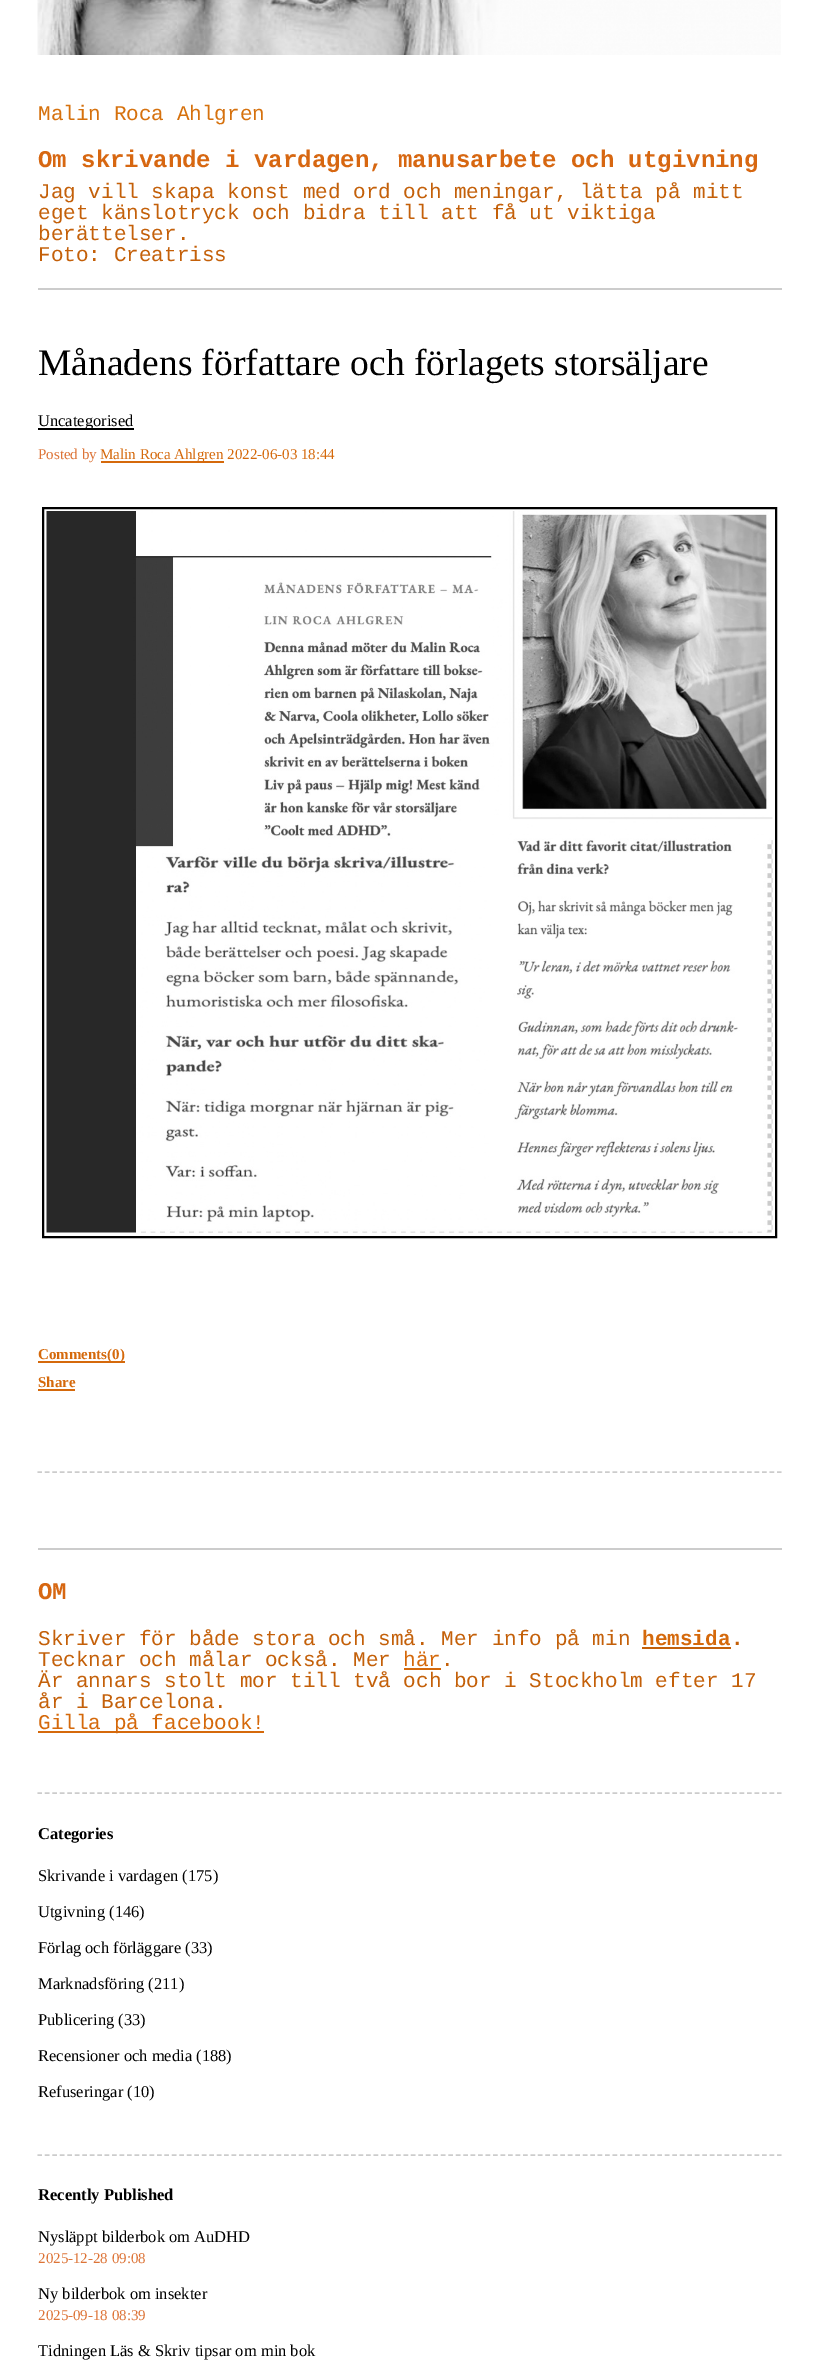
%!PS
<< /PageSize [819 2362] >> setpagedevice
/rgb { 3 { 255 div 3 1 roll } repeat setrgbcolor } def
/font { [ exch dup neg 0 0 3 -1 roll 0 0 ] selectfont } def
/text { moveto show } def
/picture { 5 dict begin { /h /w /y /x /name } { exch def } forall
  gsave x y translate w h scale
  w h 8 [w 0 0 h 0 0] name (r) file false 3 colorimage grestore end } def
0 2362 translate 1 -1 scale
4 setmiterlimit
255 255 255 rgb
0 0 819 2362 rectfill
(img_01.rgb) 37 0 744 55 picture
204 204 204 rgb
38 288 744 2 rectfill
1.5 setlinewidth
[4.5 2.97] 0 setdash
37.5 1472 moveto 744 0 rlineto stroke
0 0 0 rgb
38 428 96 2 rectfill
213 105 11 rgb
101 461 123 2 rectfill
0 0 0 rgb
2 setlinewidth
[] 0 setdash
43 508 733 729 rectstroke
(img_02.rgb) 46 511 727 722 picture
213 105 11 rgb
38 1361 87 2 rectfill
38 1389 37 2 rectfill
204 204 204 rgb
38 1548 744 2 rectfill
1.5 setlinewidth
[4.5 2.97] 0 setdash
37.5 1793 moveto 744 0 rlineto stroke
196 96 9 rgb
642 1647 89 2 rectfill
213 105 11 rgb
404 1668 37 2 rectfill
38 1731 226 2 rectfill
204 204 204 rgb
37.5 2155 moveto 744 0 rlineto stroke
/LiberationMono-Regular 21 font
214 113 13 rgb
(Malin Roca Ahlgren) 38 120 text
/LiberationMono-Bold 24 font
215 103 17 rgb
(Om skrivande i vardagen, manusarbete och utgivning) 38 167 text
/LiberationMono-Regular 21 font
196 96 9 rgb
(Jag vill skapa konst med ord och meningar, lätta på mitt) 38 198 text
(eget känslotryck och bidra till att få ut viktiga) 38 219 text
(berättelser.) 38 240 text
(Foto: Creatriss) 38 261 text
/LiberationSerif-Regular 37.5 font
0 0 0 rgb
(Månadens författare och förlagets storsäljare) 38 375 text
/LiberationSerif-Regular 16.5 font
(Uncategorised) 38 426 text
/LiberationSerif-Regular 15 font
221 115 54 rgb
(Posted by) 38 459 text
213 105 11 rgb
(Malin Roca Ahlgren 2022-06-03 18:44) 100 459 text
/LiberationSerif-Bold 15 font
(Comments\(0\)) 38 1359 text
(Share) 38 1387 text
/LiberationMono-Bold 24 font
215 103 17 rgb
(OM) 38 1599 text
/LiberationMono-Regular 21 font
196 96 9 rgb
(Skriver för både stora och små. Mer info på min) 38 1645 text
/LiberationMono-Bold 21 font
213 105 11 rgb
(hemsida) 642 1645 text
196 96 9 rgb
(.) 731 1645 text
/LiberationMono-Regular 21 font
(Tecknar och målar också. Mer) 38 1666 text
213 105 11 rgb
(här) 403 1666 text
196 96 9 rgb
(.) 441 1666 text
(Är annars stolt mor till två och bor i Stockholm efter 17) 38 1687 text
(år i Barcelona.) 38 1708 text
213 105 11 rgb
(Gilla på facebook!) 38 1729 text
/LiberationSerif-Bold 16.5 font
0 0 0 rgb
(Categories) 38 1839 text
/LiberationSerif-Regular 16.5 font
(Skrivande i vardagen \(175\)) 38 1881 text
(Utgivning \(146\)) 38 1917 text
(Förlag och förläggare \(33\)) 38 1953 text
(Marknadsföring \(211\)) 38 1989 text
(Publicering \(33\)) 38 2025 text
(Recensioner och media \(188\)) 38 2061 text
(Refuseringar \(10\)) 38 2097 text
/LiberationSerif-Bold 16.5 font
(Recently Published) 38 2200 text
/LiberationSerif-Regular 16.5 font
(Nysläppt bilderbok om AuDHD) 38 2242 text
/LiberationSerif-Regular 15 font
221 115 54 rgb
(2025-12-28 09:08) 38 2263 text
/LiberationSerif-Regular 16.5 font
0 0 0 rgb
(Ny bilderbok om insekter) 38 2299 text
/LiberationSerif-Regular 15 font
221 115 54 rgb
(2025-09-18 08:39) 38 2320 text
gsave
38 2186 744 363 rectclip
/LiberationSerif-Regular 16.5 font
0 0 0 rgb
(Tidningen Läs & Skriv tipsar om min bok) 38 2356 text
grestore
showpage
